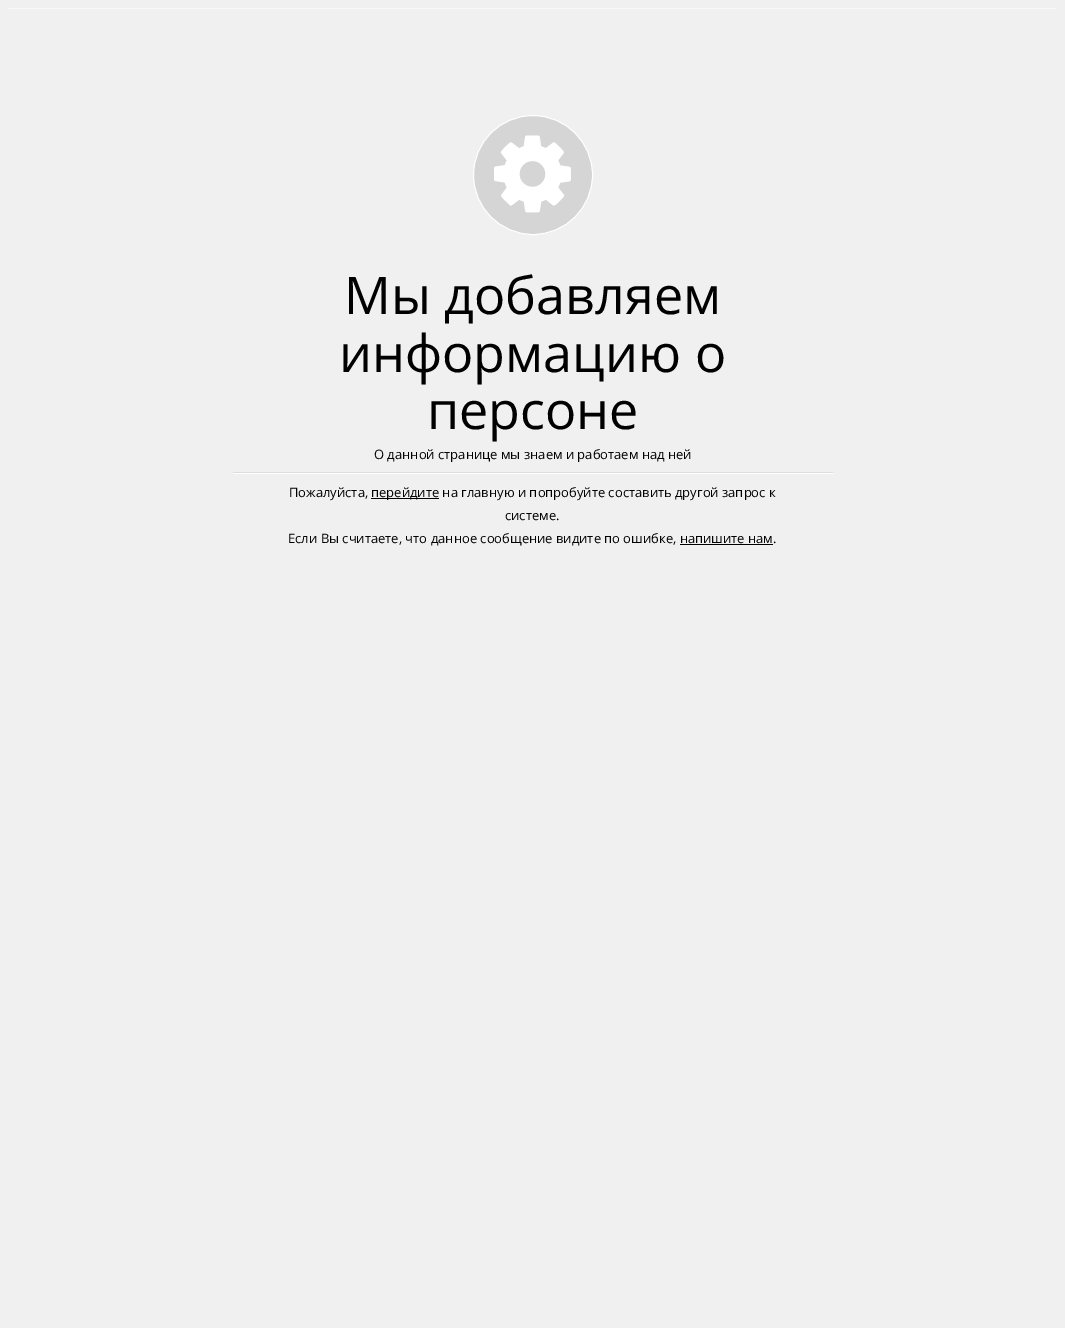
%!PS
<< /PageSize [1065 1328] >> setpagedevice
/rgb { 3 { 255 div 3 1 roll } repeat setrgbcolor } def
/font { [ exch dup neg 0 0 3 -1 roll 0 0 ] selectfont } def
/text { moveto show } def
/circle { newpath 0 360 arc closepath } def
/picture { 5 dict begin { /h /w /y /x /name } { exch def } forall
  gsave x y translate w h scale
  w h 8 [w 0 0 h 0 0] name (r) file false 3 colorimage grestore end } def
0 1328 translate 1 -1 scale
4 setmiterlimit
240 240 240 rgb
0 0 1065 1328 rectfill
248 248 248 rgb
8 8 1049 1 rectfill
255 255 255 rgb
233 473 600 1 rectfill
221 221 221 rgb
233 472 600 1 rectfill
213 213 213 rgb
533 175 59.5 circle gsave fill grestore
255 255 255 rgb
stroke
(img_01.rgb) 494 135 77 78 picture
0 0 0 rgb
371 498 68 1 rectfill
680 544 93 1 rectfill
/OpenSans-Regular 52 font
(Мы добавляем) 344 314 text
(информацию о) 339 372 text
(персоне) 427 429 text
/OpenSans-Regular 13 font
(О данной странице мы знаем и работаем над ней) 374 459 text
(Пожалуйста,) 289 497 text
(перейдите на главную и попробуйте составить другой запрос к) 371 497 text
(системе.) 505 520 text
(Если Вы считаете, что данное сообщение видите по ошибке, напишите нам.) 288 543 text
showpage
